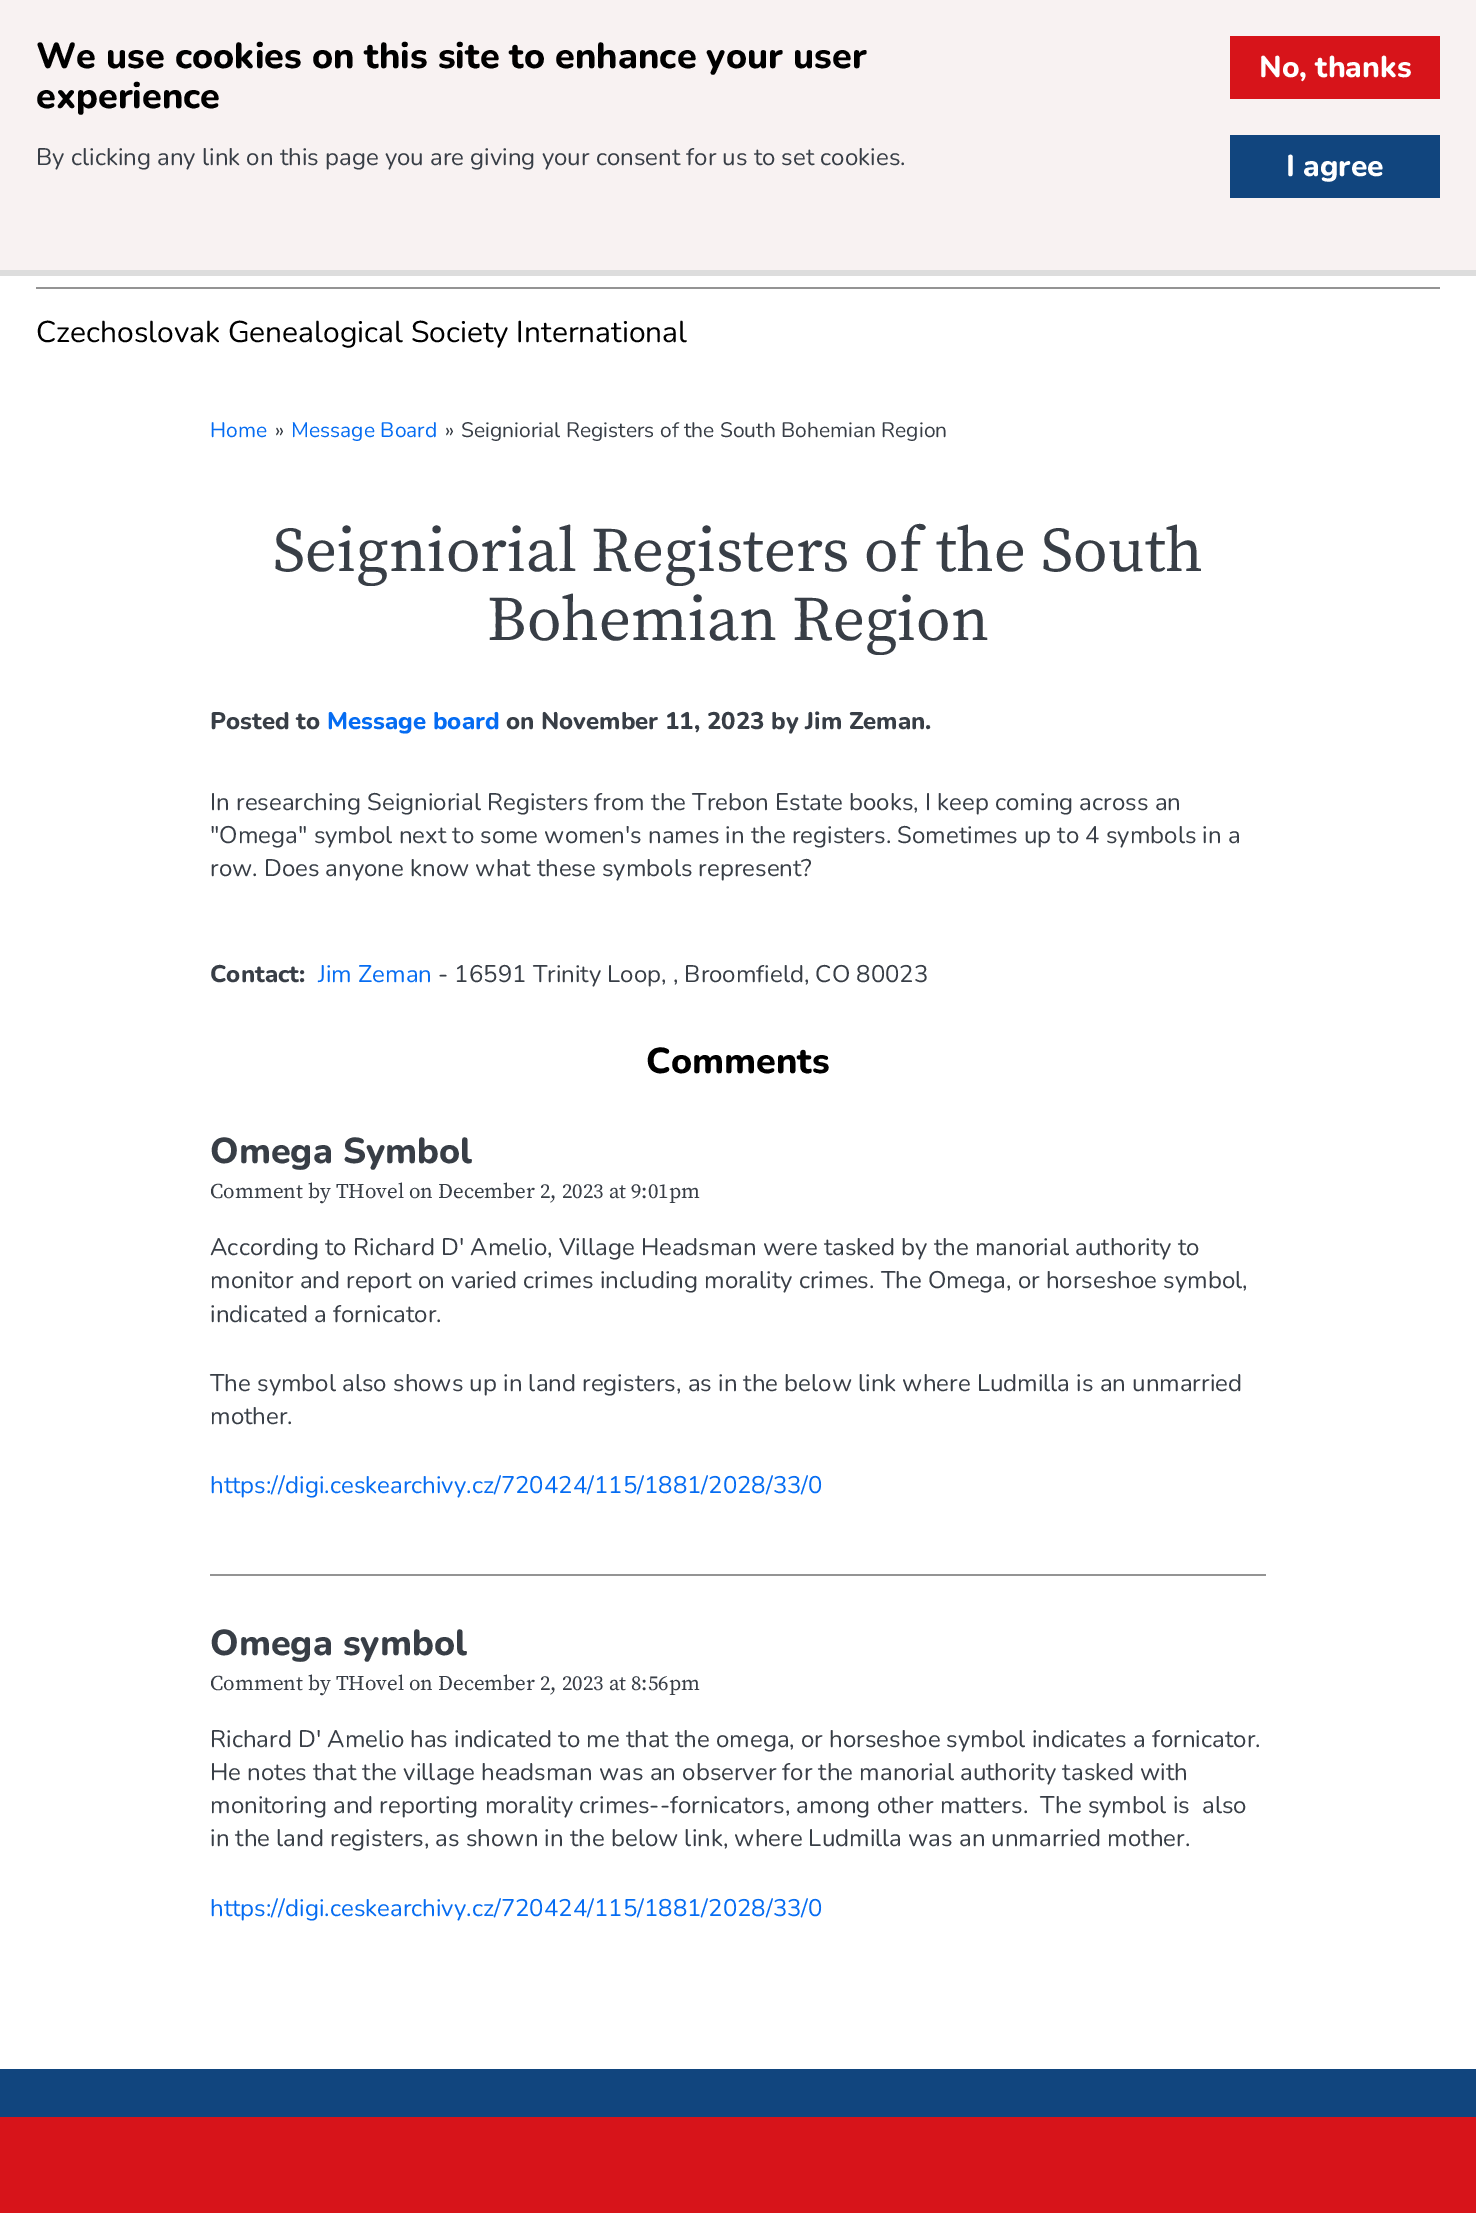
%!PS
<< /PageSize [1476 2213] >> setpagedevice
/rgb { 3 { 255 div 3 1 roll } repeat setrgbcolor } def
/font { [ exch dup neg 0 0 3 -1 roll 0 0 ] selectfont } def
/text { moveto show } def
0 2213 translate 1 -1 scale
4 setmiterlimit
255 255 255 rgb
0 0 1476 2213 rectfill
248 242 242 rgb
0 0 1476 270 rectfill
221 221 221 rgb
0 270 1476 6 rectfill
215 20 26 rgb
1230 36 210 63 rectfill
17 69 126 rgb
1230 135 210 63 rectfill
148 148 148 rgb
36 287 1404 2 rectfill
210 1574 1056 2 rectfill
215 20 26 rgb
0 2117 1476 96 rectfill
17 69 126 rgb
0 2069 1476 48 rectfill
/Nunito-ExtraBold 36 font
0 0 0 rgb
(We use cookies on this site to enhance your user) 36 68 text
(experience) 36 108 text
/Nunito-Regular 24 font
56 62 70 rgb
(By clicking any link on this page you are giving your consent for us to set cookies.) 36 165 text
/Nunito-ExtraBold 30 font
255 255 255 rgb
(No, thanks) 1259 77 text
(I agree) 1286 176 text
/Nunito-Regular 30 font
0 0 0 rgb
(Czechoslovak Genealogical Society International) 36 342 text
/Nunito-Regular 21 font
5 108 242 rgb
(Home) 210 437 text
56 62 70 rgb
(») 275 437 text
5 108 242 rgb
(Message Board) 291 437 text
56 62 70 rgb
(») 445 437 text
(Seigniorial Registers of the South Bohemian Region) 461 437 text
/SourceSerifPro-Regular 63 font
(Seigniorial Registers of the South) 273 571 text
(Bohemian Region) 487 640 text
/Nunito-ExtraBold 24 font
(Posted to) 210 729 text
5 108 242 rgb
(Message board) 327 729 text
56 62 70 rgb
(on November 11, 2023 by Jim Zeman.) 506 729 text
/Nunito-Regular 24 font
(In researching Seigniorial Registers from the Trebon Estate books, I keep coming across an) 210 810 text
("Omega" symbol next to some women's names in the registers. Sometimes up to 4 symbols in a) 210 843 text
(row. Does anyone know what these symbols represent?) 210 876 text
/Nunito-ExtraBold 24 font
(Contact:) 210 982 text
/Nunito-Regular 24 font
5 108 242 rgb
(Jim Zeman) 318 982 text
56 62 70 rgb
(- 16591 Trinity Loop, , Broomfield, CO 80023) 438 982 text
/Nunito-ExtraBold 36 font
0 0 0 rgb
(Comments) 646 1073 text
56 62 70 rgb
(Omega Symbol) 210 1163 text
/SourceSerifPro-Regular 21 font
(Comment by THovel on December 2, 2023 at 9:01pm) 210 1198 text
/Nunito-Regular 24 font
(According to Richard D' Amelio, Village Headsman were tasked by the manorial authority to) 210 1255 text
(monitor and report on varied crimes including morality crimes. The Omega, or horseshoe symbol,) 210 1288 text
(indicated a fornicator.) 210 1322 text
(The symbol also shows up in land registers, as in the below link where Ludmilla is an unmarried) 210 1391 text
(mother.) 210 1424 text
5 108 242 rgb
(https://digi.ceskearchivy.cz/720424/115/1881/2028/33/0) 210 1493 text
/Nunito-ExtraBold 36 font
56 62 70 rgb
(Omega symbol) 210 1655 text
/SourceSerifPro-Regular 21 font
(Comment by THovel on December 2, 2023 at 8:56pm) 210 1690 text
/Nunito-Regular 24 font
(Richard D' Amelio has indicated to me that the omega, or horseshoe symbol indicates a fornicator.) 210 1747 text
(He notes that the village headsman was an observer for the manorial authority tasked with) 210 1780 text
(monitoring and reporting morality crimes--fornicators, among other matters.  The symbol is  also) 210 1813 text
(in the land registers, as shown in the below link, where Ludmilla was an unmarried mother.) 210 1846 text
5 108 242 rgb
(https://digi.ceskearchivy.cz/720424/115/1881/2028/33/0) 210 1916 text
showpage
